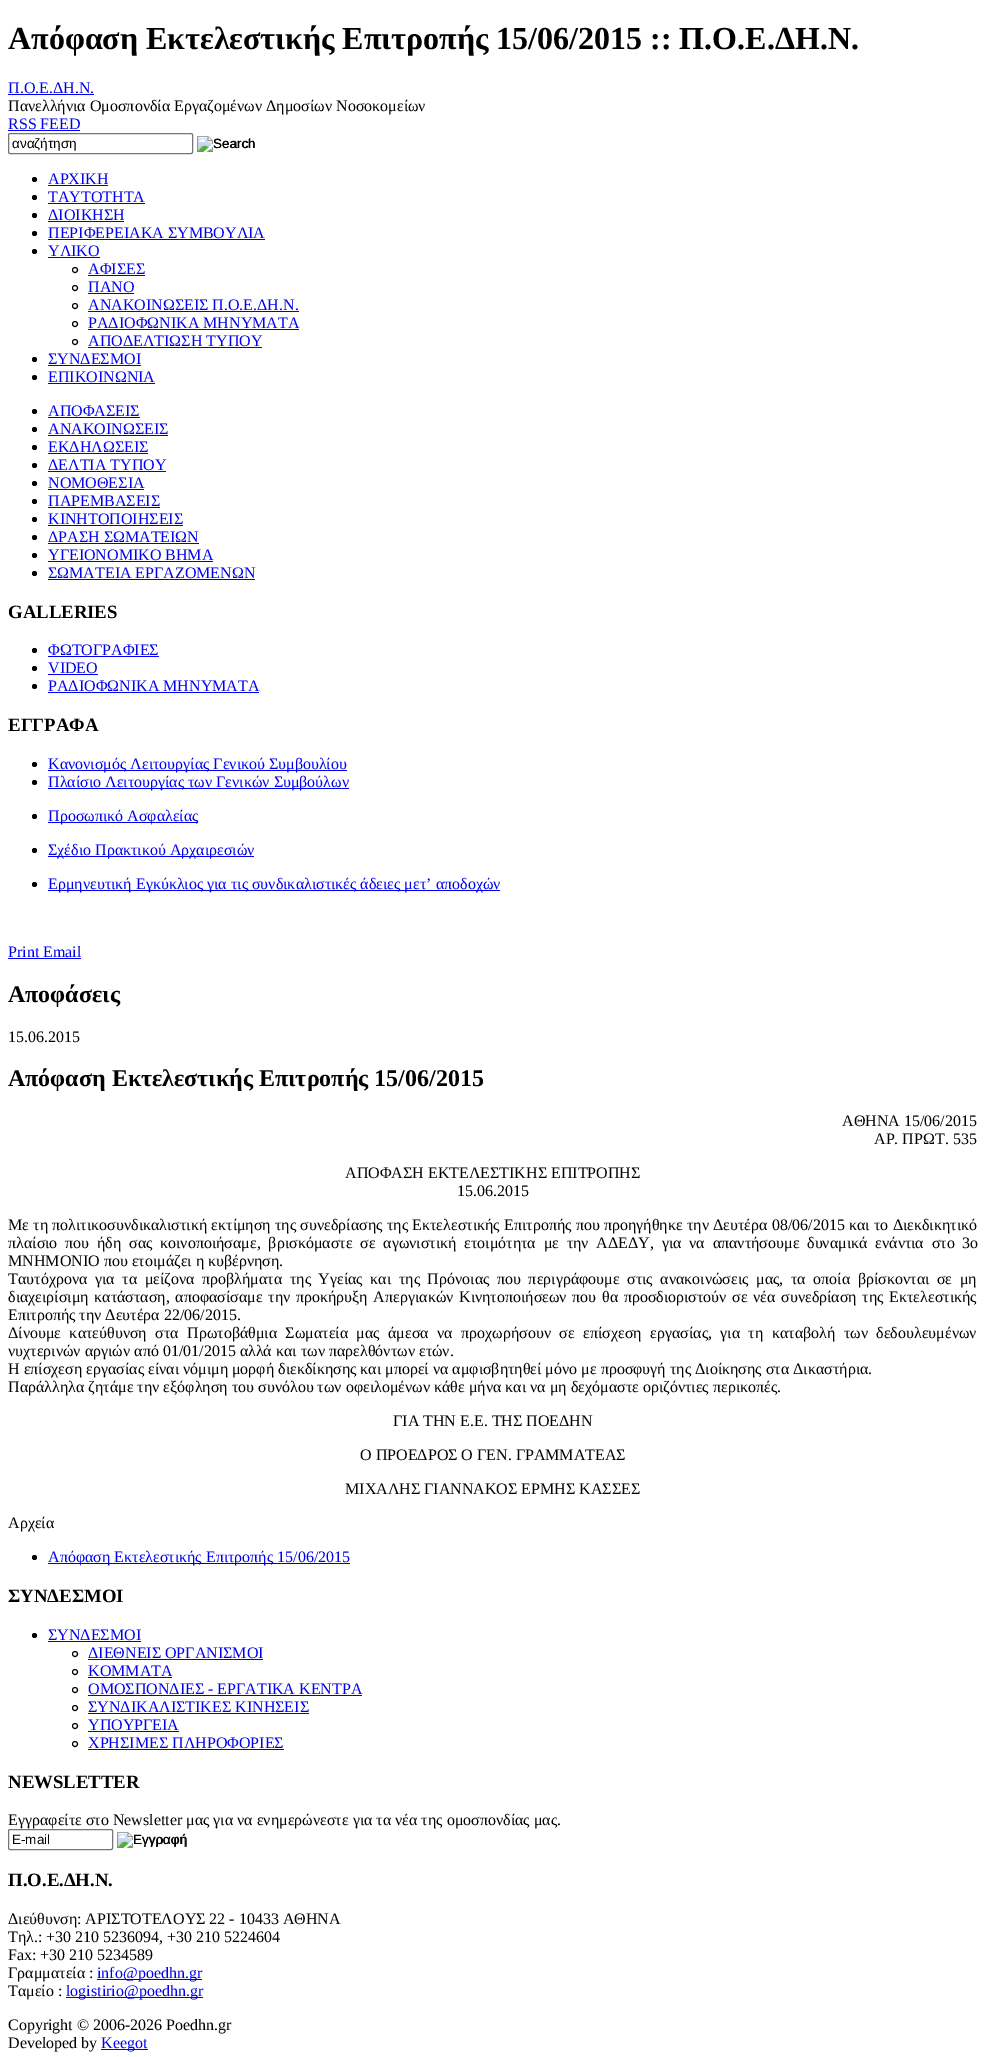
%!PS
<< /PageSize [985 2057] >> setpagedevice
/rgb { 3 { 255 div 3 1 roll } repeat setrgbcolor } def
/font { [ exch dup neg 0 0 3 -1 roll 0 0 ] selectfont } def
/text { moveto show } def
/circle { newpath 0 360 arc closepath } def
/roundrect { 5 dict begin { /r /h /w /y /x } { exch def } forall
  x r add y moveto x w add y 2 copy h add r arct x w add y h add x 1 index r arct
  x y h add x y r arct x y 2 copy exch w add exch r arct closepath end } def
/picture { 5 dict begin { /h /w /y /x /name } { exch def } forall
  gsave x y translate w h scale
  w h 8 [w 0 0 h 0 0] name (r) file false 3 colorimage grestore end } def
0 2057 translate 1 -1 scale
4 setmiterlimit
255 255 255 rgb
0 0 985 2057 rectfill
0 0 238 rgb
8 94 86 1 rectfill
8 130 72 1 rectfill
118 118 118 rgb
8.5 133.5 184 20 1.5 roundrect stroke
(img_01.rgb) 197 136 58 16 picture
0 0 0 rgb
34.5 179.5 2.5 circle fill
0 0 238 rgb
48 185 60 1 rectfill
0 0 0 rgb
34.5 197.5 2.5 circle fill
0 0 238 rgb
48 203 97 1 rectfill
0 0 0 rgb
34.5 215.5 2.5 circle fill
0 0 238 rgb
48 221 76 1 rectfill
0 0 0 rgb
34.5 233.5 2.5 circle fill
0 0 238 rgb
48 239 217 1 rectfill
0 0 0 rgb
34.5 251.5 2.5 circle fill
0 0 238 rgb
48 257 52 1 rectfill
0 0 0 rgb
75 270 2.5 circle stroke
0 0 238 rgb
88 275 57 1 rectfill
0 0 0 rgb
75 288 2.5 circle stroke
0 0 238 rgb
88 293 46 1 rectfill
0 0 0 rgb
75 306 2.5 circle stroke
0 0 238 rgb
88 311 211 1 rectfill
0 0 0 rgb
75 324 2.5 circle stroke
0 0 238 rgb
88 329 211 1 rectfill
0 0 0 rgb
75 342 2.5 circle stroke
0 0 238 rgb
88 347 174 1 rectfill
0 0 0 rgb
34.5 359.5 2.5 circle fill
0 0 238 rgb
48 365 93 1 rectfill
0 0 0 rgb
34.5 377.5 2.5 circle fill
0 0 238 rgb
48 383 107 1 rectfill
0 0 0 rgb
34.5 411.5 2.5 circle fill
0 0 238 rgb
48 417 92 1 rectfill
0 0 0 rgb
34.5 429.5 2.5 circle fill
0 0 238 rgb
48 435 120 1 rectfill
0 0 0 rgb
34.5 447.5 2.5 circle fill
0 0 238 rgb
48 453 100 1 rectfill
0 0 0 rgb
34.5 465.5 2.5 circle fill
0 0 238 rgb
48 471 118 1 rectfill
0 0 0 rgb
34.5 483.5 2.5 circle fill
0 0 238 rgb
48 489 96 1 rectfill
0 0 0 rgb
34.5 501.5 2.5 circle fill
0 0 238 rgb
48 507 112 1 rectfill
0 0 0 rgb
34.5 519.5 2.5 circle fill
0 0 238 rgb
48 525 135 1 rectfill
0 0 0 rgb
34.5 537.5 2.5 circle fill
0 0 238 rgb
48 543 151 1 rectfill
0 0 0 rgb
34.5 555.5 2.5 circle fill
0 0 238 rgb
48 561 165 1 rectfill
0 0 0 rgb
34.5 573.5 2.5 circle fill
0 0 238 rgb
48 579 207 1 rectfill
0 0 0 rgb
34.5 650.5 2.5 circle fill
0 0 238 rgb
48 656 111 1 rectfill
0 0 0 rgb
34.5 668.5 2.5 circle fill
0 0 238 rgb
48 674 50 1 rectfill
0 0 0 rgb
34.5 686.5 2.5 circle fill
0 0 238 rgb
48 692 211 1 rectfill
0 0 0 rgb
34.5 764.5 2.5 circle fill
0 0 238 rgb
48 770 299 1 rectfill
0 0 0 rgb
34.5 782.5 2.5 circle fill
0 0 238 rgb
48 788 301 1 rectfill
0 0 0 rgb
34.5 816.5 2.5 circle fill
0 0 238 rgb
48 822 150 1 rectfill
0 0 0 rgb
34.5 850.5 2.5 circle fill
0 0 238 rgb
48 856 206 1 rectfill
0 0 0 rgb
34.5 884.5 2.5 circle fill
0 0 238 rgb
48 890 452 1 rectfill
8 958 73 1 rectfill
0 0 0 rgb
34.5 1557.5 2.5 circle fill
0 0 238 rgb
48 1563 302 1 rectfill
0 0 0 rgb
34.5 1635.5 2.5 circle fill
0 0 238 rgb
48 1641 93 1 rectfill
0 0 0 rgb
75 1654 2.5 circle stroke
0 0 238 rgb
88 1659 175 1 rectfill
0 0 0 rgb
75 1672 2.5 circle stroke
0 0 238 rgb
88 1677 84 1 rectfill
0 0 0 rgb
75 1690 2.5 circle stroke
0 0 238 rgb
88 1695 274 1 rectfill
0 0 0 rgb
75 1708 2.5 circle stroke
0 0 238 rgb
88 1713 221 1 rectfill
0 0 0 rgb
75 1726 2.5 circle stroke
0 0 238 rgb
88 1731 91 1 rectfill
0 0 0 rgb
75 1744 2.5 circle stroke
0 0 238 rgb
88 1749 196 1 rectfill
118 118 118 rgb
8.5 1829.5 104 20 1.5 roundrect stroke
(img_02.rgb) 117 1832 69 16 picture
0 0 238 rgb
97 1979 105 1 rectfill
66 1997 137 1 rectfill
101 2049 47 1 rectfill
/LiberationSerif-Bold 32 font
0 0 0 rgb
(Απόφαση Εκτελεστικής Επιτροπής 15/06/2015 :: Π.Ο.Ε.ΔΗ.Ν.) 8 49 text
/LiberationSerif-Regular 16 font
0 0 238 rgb
(Π.Ο.Ε.ΔΗ.Ν.) 8 93 text
0 0 0 rgb
(Πανελλήνια Ομοσπονδία Εργαζομένων Δημοσίων Νοσοκομείων) 8 111 text
0 0 238 rgb
(RSS FEED) 8 129 text
/LiberationSans-Regular 13.5 font
0 0 0 rgb
(αναζήτηση) 12 148 text
(Search) 213 148 text
/LiberationSerif-Regular 16 font
0 0 238 rgb
(ΑΡΧΙΚΗ) 48 184 text
(ΤΑΥΤΟΤΗΤΑ) 48 202 text
(ΔΙΟΙΚΗΣΗ) 48 220 text
(ΠΕΡΙΦΕΡΕΙΑΚΑ ΣΥΜΒΟΥΛΙΑ) 48 238 text
(ΥΛΙΚΟ) 48 256 text
(ΑΦΙΣΕΣ) 88 274 text
(ΠΑΝΟ) 88 292 text
(ΑΝΑΚΟΙΝΩΣΕΙΣ Π.Ο.Ε.ΔΗ.Ν.) 88 310 text
(ΡΑΔΙΟΦΩΝΙΚΑ ΜΗΝΥΜΑΤΑ) 88 328 text
(ΑΠΟΔΕΛΤΙΩΣΗ ΤΥΠΟΥ) 88 346 text
(ΣΥΝΔΕΣΜΟΙ) 48 364 text
(ΕΠΙΚΟΙΝΩΝΙΑ) 48 382 text
(ΑΠΟΦΑΣΕΙΣ) 48 416 text
(ΑΝΑΚΟΙΝΩΣΕΙΣ) 48 434 text
(ΕΚΔΗΛΩΣΕΙΣ) 48 452 text
(ΔΕΛΤΙΑ ΤΥΠΟΥ) 48 470 text
(ΝΟΜΟΘΕΣΙΑ) 48 488 text
(ΠΑΡΕΜΒΑΣΕΙΣ) 48 506 text
(ΚΙΝΗΤΟΠΟΙΗΣΕΙΣ) 48 524 text
(ΔΡΑΣΗ ΣΩΜΑΤΕΙΩΝ) 48 542 text
(ΥΓΕΙΟΝΟΜΙΚΟ ΒΗΜΑ) 48 560 text
(ΣΩΜΑΤΕΙΑ ΕΡΓΑΖΟΜΕΝΩΝ) 48 578 text
/LiberationSerif-Bold 18.75 font
0 0 0 rgb
(GALLERIES) 8 618 text
/LiberationSerif-Regular 16 font
0 0 238 rgb
(ΦΩΤΟΓΡΑΦΙΕΣ) 48 655 text
(VIDEO) 48 673 text
(ΡΑΔΙΟΦΩΝΙΚΑ ΜΗΝΥΜΑΤΑ) 48 691 text
/LiberationSerif-Bold 18.75 font
0 0 0 rgb
(ΕΓΓΡΑΦΑ) 8 731 text
/LiberationSerif-Regular 16 font
0 0 238 rgb
(Κανονισμός Λειτουργίας Γενικού Συμβουλίου) 48 769 text
(Πλαίσιο Λειτουργίας των Γενικών Συμβούλων) 48 787 text
(Προσωπικό Ασφαλείας) 48 821 text
(Σχέδιο Πρακτικού Αρχαιρεσιών) 48 855 text
(Ερμηνευτική Εγκύκλιος για τις συνδικαλιστικές άδειες μετ’ αποδοχών) 48 889 text
(Print Email) 8 957 text
/LiberationSerif-Bold 24 font
0 0 0 rgb
(Αποφάσεις) 8 1002 text
/LiberationSerif-Regular 16 font
(15.06.2015) 8 1042 text
/LiberationSerif-Bold 24 font
(Απόφαση Εκτελεστικής Επιτροπής 15/06/2015) 8 1086 text
/LiberationSerif-Regular 16 font
(ΑΘΗΝΑ 15/06/2015) 842 1126 text
(ΑΡ. ΠΡΩΤ. 535) 874 1144 text
(ΑΠΟΦΑΣΗ ΕΚΤΕΛΕΣΤΙΚΗΣ ΕΠΙΤΡΟΠΗΣ) 345 1178 text
(15.06.2015) 457 1196 text
8 1230 moveto 0.25 0 32 (Με τη πολιτικοσυνδικαλιστική εκτίμηση της συνεδρίασης της Εκτελεστικής Επιτροπής που προηγήθηκε την Δευτέρα 08/06/2015 και το Διεκδικητικό) widthshow
8 1248 moveto 3.75 0 32 (πλαίσιο που ήδη σας κοινοποιήσαμε, βρισκόμαστε σε αγωνιστική ετοιμότητα με την ΑΔΕΔΥ, για να απαντήσουμε δυναμικά ενάντια στο 3ο) widthshow
(ΜΝΗΜΟΝΙΟ που ετοιμάζει η κυβέρνηση.) 8 1266 text
8 1284 moveto 3.6 0 32 (Ταυτόχρονα για τα μείζονα προβλήματα της Υγείας και της Πρόνοιας που περιγράφουμε στις ανακοινώσεις μας, τα οποία βρίσκονται σε μη) widthshow
8 1302 moveto 1.6 0 32 (διαχειρίσιμη κατάσταση, αποφασίσαμε την προκήρυξη Απεργιακών Κινητοποιήσεων που θα προσδιοριστούν σε νέα συνεδρίαση της Εκτελεστικής) widthshow
(Επιτροπής την Δευτέρα 22/06/2015.) 8 1320 text
8 1338 moveto 4.4 0 32 (Δίνουμε κατεύθυνση στα Πρωτοβάθμια Σωματεία μας άμεσα να προχωρήσουν σε επίσχεση εργασίας, για τη καταβολή των δεδουλευμένων) widthshow
(νυχτερινών αργιών από 01/01/2015 αλλά και των παρελθόντων ετών.) 8 1356 text
(Η επίσχεση εργασίας είναι νόμιμη μορφή διεκδίκησης και μπορεί να αμφισβητηθεί μόνο με προσφυγή της Διοίκησης στα Δικαστήρια.) 8 1374 text
(Παράλληλα ζητάμε την εξόφληση του συνόλου των οφειλομένων κάθε μήνα και να μη δεχόμαστε οριζόντιες περικοπές.) 8 1392 text
(ΓΙΑ ΤΗΝ Ε.Ε. ΤΗΣ ΠΟΕΔΗΝ) 393 1426 text
(Ο ΠΡΟΕΔΡΟΣ Ο ΓΕΝ. ΓΡΑΜΜΑΤΕΑΣ) 360 1460 text
(ΜΙΧΑΛΗΣ ΓΙΑΝΝΑΚΟΣ ΕΡΜΗΣ ΚΑΣΣΕΣ) 345 1494 text
(Αρχεία) 8 1528 text
0 0 238 rgb
(Απόφαση Εκτελεστικής Επιτροπής 15/06/2015) 48 1562 text
/LiberationSerif-Bold 18.75 font
0 0 0 rgb
(ΣΥΝΔΕΣΜΟΙ) 8 1602 text
/LiberationSerif-Regular 16 font
0 0 238 rgb
(ΣΥΝΔΕΣΜΟΙ) 48 1640 text
(ΔΙΕΘΝΕΙΣ ΟΡΓΑΝΙΣΜΟΙ) 88 1658 text
(ΚΟΜΜΑΤΑ) 88 1676 text
(ΟΜΟΣΠΟΝΔΙΕΣ - ΕΡΓΑΤΙΚΑ ΚΕΝΤΡΑ) 88 1694 text
(ΣΥΝΔΙΚΑΛΙΣΤΙΚΕΣ ΚΙΝΗΣΕΙΣ) 88 1712 text
(ΥΠΟΥΡΓΕΙΑ) 88 1730 text
(ΧΡΗΣΙΜΕΣ ΠΛΗΡΟΦΟΡΙΕΣ) 88 1748 text
/LiberationSerif-Bold 18.75 font
0 0 0 rgb
(NEWSLETTER) 8 1788 text
/LiberationSerif-Regular 16 font
(Εγγραφείτε στο Newsletter μας για να ενημερώνεστε για τα νέα της ομοσπονδίας μας.) 8 1825 text
/LiberationSans-Regular 13.5 font
(E-mail) 12 1844 text
(Εγγραφή) 133 1844 text
/LiberationSerif-Bold 18.75 font
(Π.Ο.Ε.ΔΗ.Ν.) 8 1886 text
/LiberationSerif-Regular 16 font
(Διεύθυνση: ΑΡΙΣΤΟΤΕΛΟΥΣ 22 - 10433 ΑΘΗΝΑ) 8 1924 text
(Τηλ.: +30 210 5236094, +30 210 5224604) 8 1942 text
(Fax: +30 210 5234589) 8 1960 text
(Γραμματεία :) 8 1978 text
0 0 238 rgb
(info@poedhn.gr) 97 1978 text
0 0 0 rgb
(Ταμείο :) 8 1996 text
0 0 238 rgb
(logistirio@poedhn.gr) 66 1996 text
0 0 0 rgb
(Copyright © 2006-2026 Poedhn.gr) 8 2030 text
(Developed by) 8 2048 text
0 0 238 rgb
(Keegot) 101 2048 text
showpage
